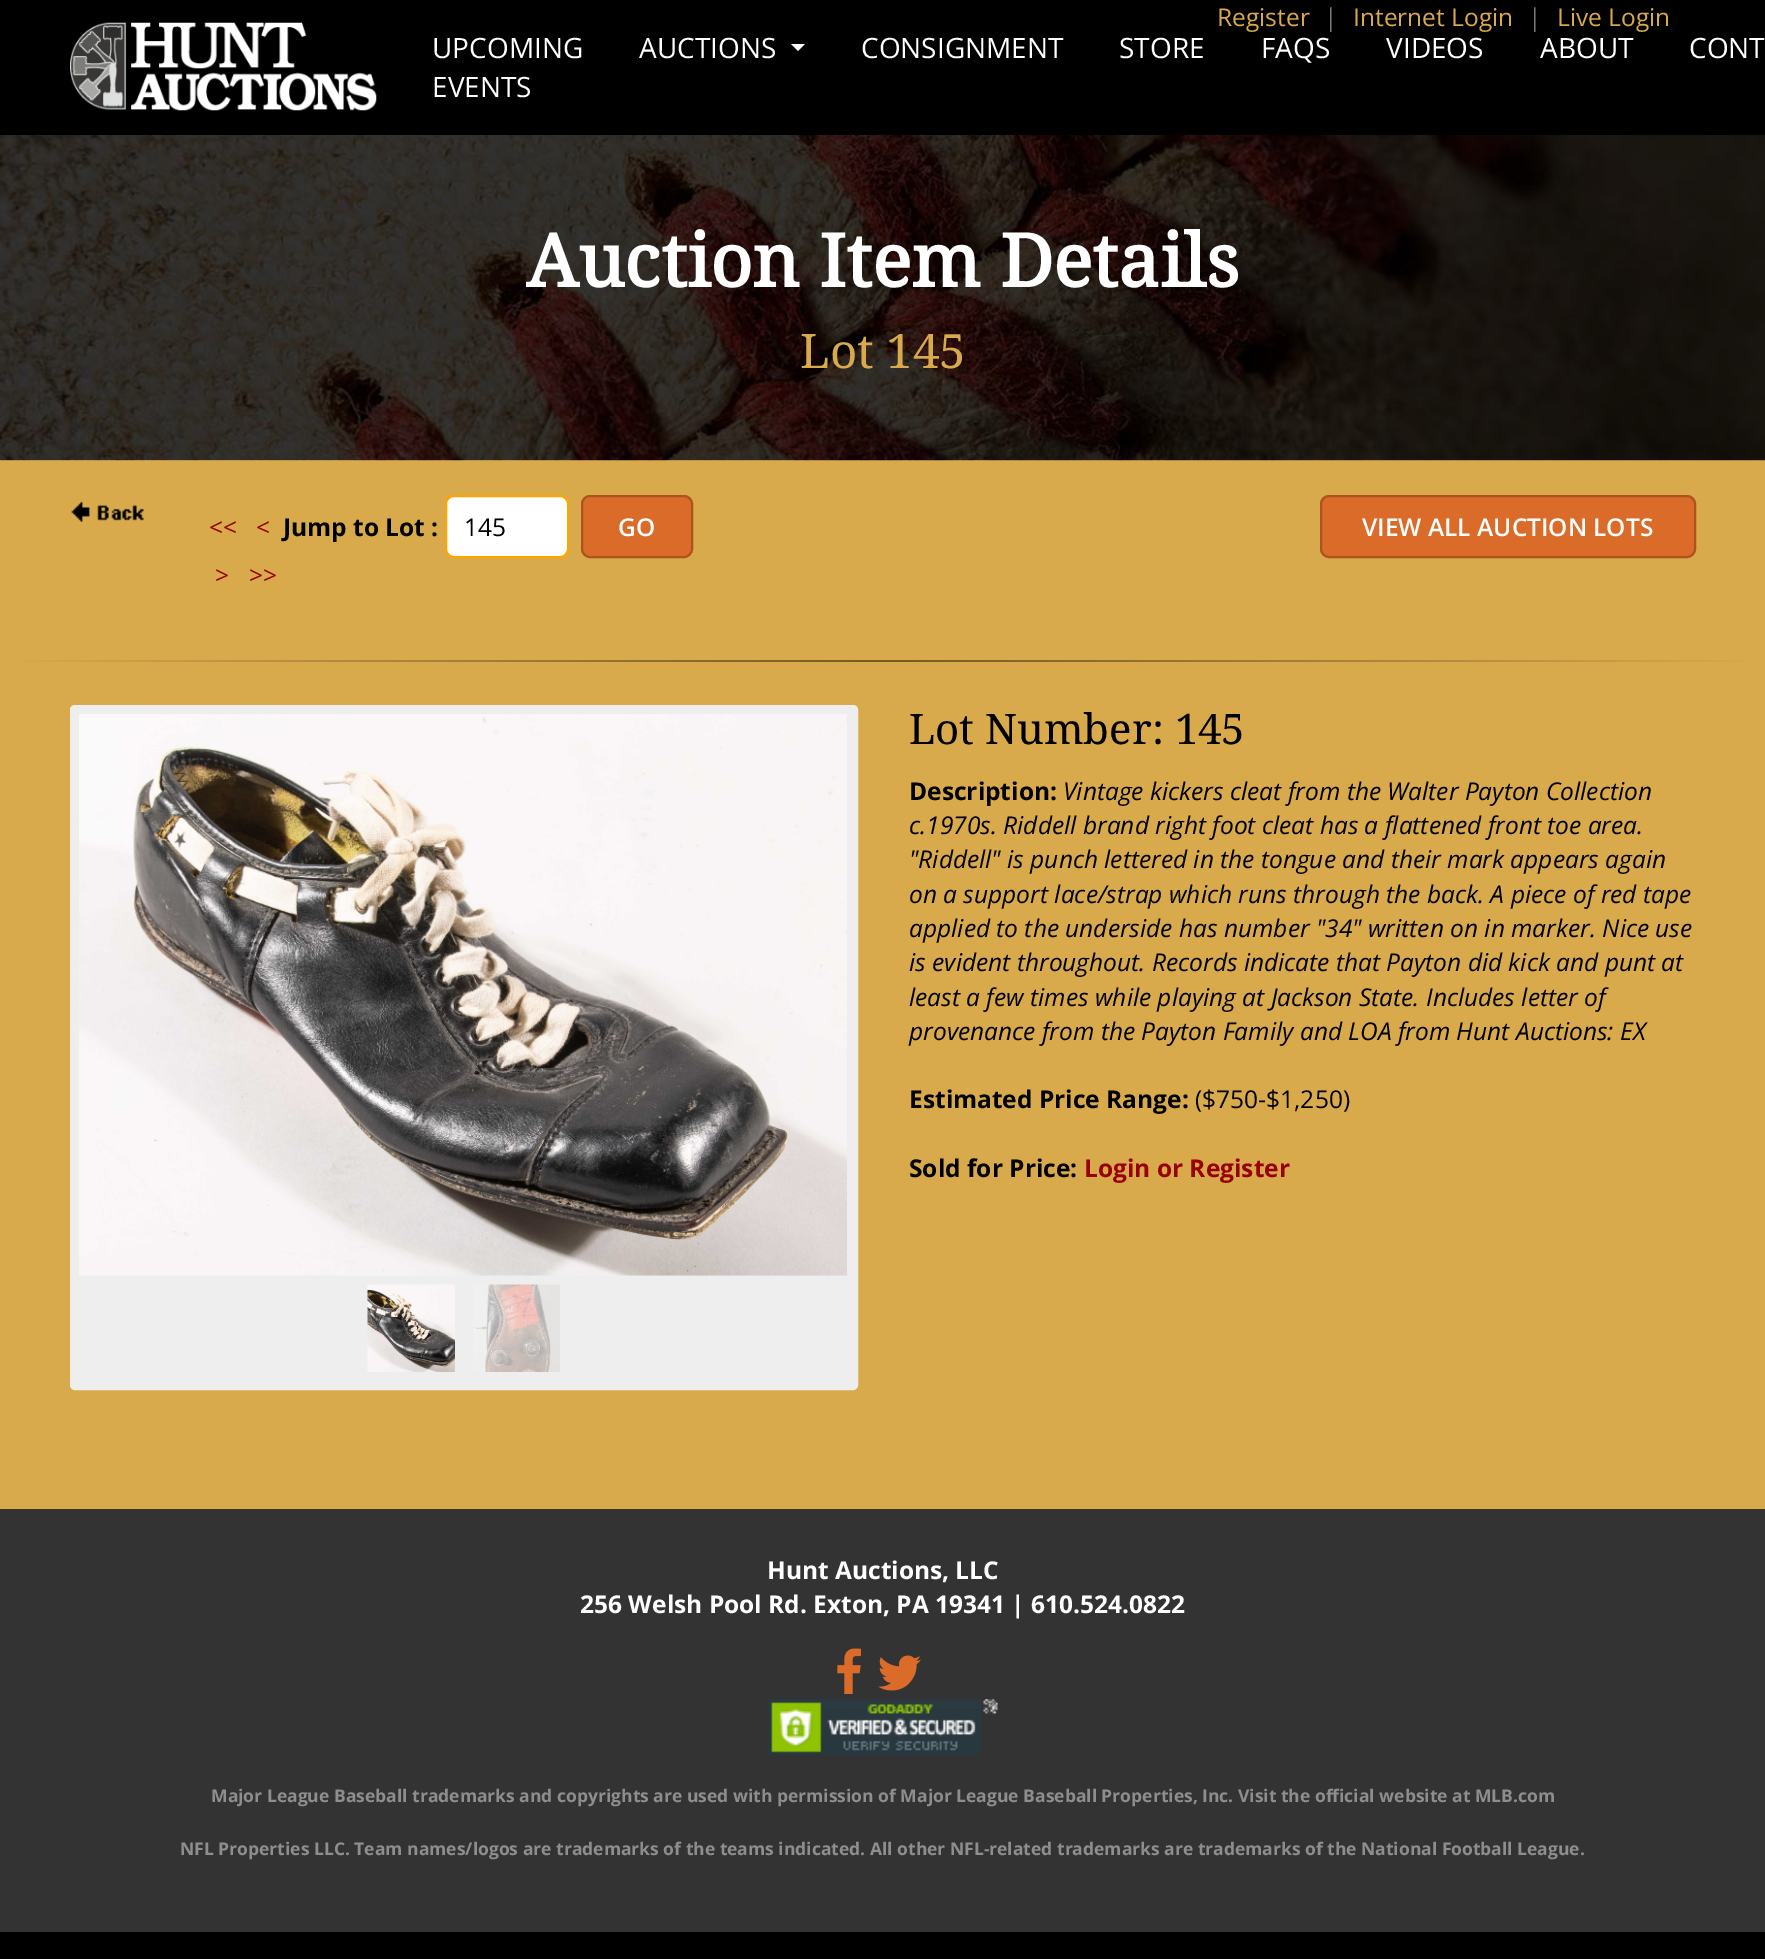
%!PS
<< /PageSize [1765 1959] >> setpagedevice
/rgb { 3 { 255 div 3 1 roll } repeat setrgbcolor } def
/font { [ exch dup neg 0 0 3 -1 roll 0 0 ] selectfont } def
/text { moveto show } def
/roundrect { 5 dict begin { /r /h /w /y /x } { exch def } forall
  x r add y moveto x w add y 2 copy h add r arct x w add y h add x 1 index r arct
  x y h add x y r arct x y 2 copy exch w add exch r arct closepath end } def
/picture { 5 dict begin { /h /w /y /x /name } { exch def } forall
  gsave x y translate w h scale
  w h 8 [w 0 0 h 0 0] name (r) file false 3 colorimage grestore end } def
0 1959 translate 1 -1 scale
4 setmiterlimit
0 0 0 rgb
0 0 1765 1959 rectfill
216 170 76 rgb
0 460 1765 1049 rectfill
(img_01.rgb) 70 22 307 89 picture
255 255 255 rgb
791 44 moveto 14 0 rlineto -7 7 rlineto closepath fill
(img_02.rgb) 0 135 1765 326 picture
(img_03.rgb) 71 501 73 21 picture
446 496 122 61 8 roundrect gsave fill grestore
255 165 0 rgb
2 setlinewidth
stroke
219 107 40 rgb
582 496 110 61 8 roundrect gsave fill grestore
173 83 30 rgb
stroke
219 107 40 rgb
1321 496 374 61 8 roundrect gsave fill grestore
173 83 30 rgb
stroke
gsave 23 660 moveto 1720 0 rlineto 0 2 rlineto -1720 0 rlineto closepath clip newpath
<< /ShadingType 2 /ColorSpace /DeviceRGB /Coords [0 661 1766 661] /Extend [true true] /Function << /FunctionType 3 /Domain [0 1] /Functions [<< /FunctionType 2 /Domain [0 1] /C0 [0.847 0.667 0.298] /C1 [0.467 0.349 0.145] /N 1 >> << /FunctionType 2 /Domain [0 1] /C0 [0.467 0.349 0.145] /C1 [0.847 0.667 0.298] /N 1 >>] /Bounds [0.5] /Encode [0 1 0 1] >> >> shfill grestore
238 238 238 rgb
74.5 709.5 779 676 0.5 roundrect gsave fill grestore
9 setlinewidth
stroke
(img_04.rgb) 79 714 768 562 picture
(img_05.rgb) 367 1284 88 88 picture
(img_06.rgb) 473 1284 87 88 picture
51 51 51 rgb
0 1509 1765 423 rectfill
(img_07.rgb) 837 1648 24 46 picture
(img_08.rgb) 878 1655 43 36 picture
(img_09.rgb) 768 1699 230 56 picture
/OpenSans-Regular 24.5 font
216 170 76 rgb
(Register) 1217 26 text
123 123 123 rgb
(|) 1324 26 text
216 170 76 rgb
(Internet Login) 1353 26 text
123 123 123 rgb
(|) 1528 26 text
216 170 76 rgb
(Live Login) 1557 26 text
/OpenSans-Regular 28 font
255 255 255 rgb
(UPCOMING) 432 58 text
(EVENTS) 432 97 text
(AUCTIONS) 639 58 text
(CONSIGNMENT) 861 58 text
(STORE) 1119 58 text
(FAQS) 1261 58 text
(VIDEOS) 1386 58 text
(ABOUT) 1540 58 text
(CONT) 1689 58 text
/DroidSerif-Bold 73.5 font
(Auction Item Details) 526 287 text
/DroidSerif-Regular 47.5 font
216 170 76 rgb
(Lot 145) 800 368 text
/OpenSans-Regular 24.5 font
153 0 0 rgb
(<<) 209 536 text
(<) 256 536 text
/OpenSans-Bold 24.5 font
0 0 0 rgb
(Jump to Lot :) 283 536 text
/OpenSans-Regular 24.5 font
(145) 464 536 text
/OpenSans-SemiBold 24.5 font
255 255 255 rgb
(GO) 618 536 text
/OpenSans-Regular 24.5 font
153 0 0 rgb
(>) 215 584 text
(>>) 249 584 text
/OpenSans-SemiBold 24.5 font
255 255 255 rgb
(VIEW ALL AUCTION LOTS) 1362 536 text
/DroidSerif-Regular 42 font
0 0 0 rgb
(Lot Number: 145) 909 744 text
/OpenSans-Bold 24.5 font
(Description:) 909 800 text
/OpenSans-Italic 24.5 font
(Vintage kickers cleat from the Walter Payton Collection) 1063 800 text
(c.1970s. Riddell brand right foot cleat has a flattened front toe area.) 909 834 text
("Riddell" is punch lettered in the tongue and their mark appears again) 909 868 text
(on a support lace/strap which runs through the back. A piece of red tape) 909 903 text
(applied to the underside has number "34" written on in marker. Nice use) 909 937 text
(is evident throughout. Records indicate that Payton did kick and punt at) 909 971 text
(least a few times while playing at Jackson State. Includes letter of) 909 1006 text
(provenance from the Payton Family and LOA from Hunt Auctions: EX) 909 1040 text
/OpenSans-Bold 24.5 font
(Estimated Price Range:) 909 1108 text
/OpenSans-Regular 24.5 font
(\($750-$1,250\)) 1195 1108 text
/OpenSans-Bold 24.5 font
(Sold for Price:) 909 1177 text
153 0 0 rgb
(Login or Register) 1084 1177 text
255 255 255 rgb
(Hunt Auctions, LLC) 767 1579 text
(256 Welsh Pool Rd. Exton, PA 19341 | 610.524.0822) 580 1613 text
/OpenSans-Bold 17.5 font
142 142 142 rgb
(Major League Baseball trademarks and copyrights are used with permission of Major League Baseball Properties, Inc. Visit the official website at MLB.com) 211 1802 text
(NFL Properties LLC. Team names/logos are trademarks of the teams indicated. All other NFL-related trademarks are trademarks of the National Football League.) 180 1855 text
showpage
